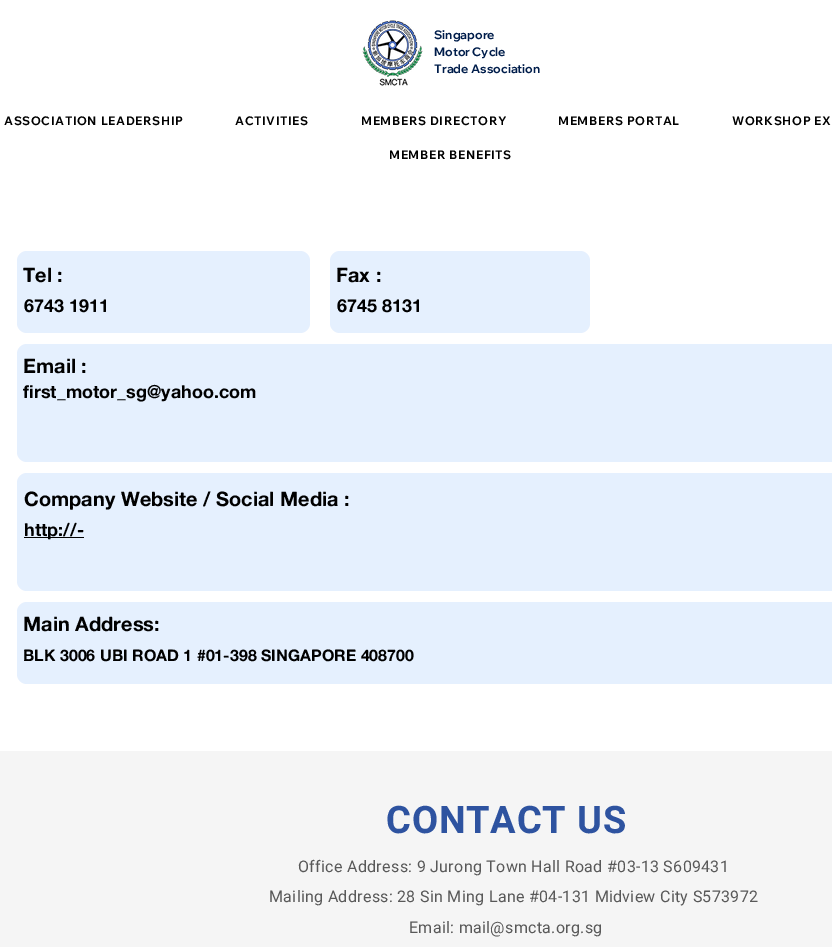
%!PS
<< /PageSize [832 947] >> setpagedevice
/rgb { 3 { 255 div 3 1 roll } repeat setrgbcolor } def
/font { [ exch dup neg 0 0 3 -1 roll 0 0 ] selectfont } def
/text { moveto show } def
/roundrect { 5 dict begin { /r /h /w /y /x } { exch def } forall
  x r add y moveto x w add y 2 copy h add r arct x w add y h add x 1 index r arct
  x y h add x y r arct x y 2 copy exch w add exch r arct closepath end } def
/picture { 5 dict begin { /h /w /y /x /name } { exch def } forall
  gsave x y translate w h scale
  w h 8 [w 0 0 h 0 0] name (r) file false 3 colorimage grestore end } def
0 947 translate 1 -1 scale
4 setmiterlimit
255 255 255 rgb
0 0 832 947 rectfill
(img_01.rgb) 362 20 61 66 picture
229 240 254 rgb
17 251 293 82 10 roundrect fill
330 251 260 82 10 roundrect fill
17 344 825 118 10 roundrect fill
17 473 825 118 10 roundrect fill
0 0 0 rgb
24 537 60 1 rectfill
229 240 254 rgb
17 602 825 82 10 roundrect fill
245 245 245 rgb
0 751 832 196 rectfill
/WixMadeforDisplay-Bold 12 font
0 29 75 rgb
(Singapore) 434 39 text
(Motor Cycle) 434 56 text
(Trade Association) 434 73 text
/WixMadeforText-Bold 12 font
0 0 0 rgb
4 125 moveto 0.6 0 (ASSOCIATION LEADERSHIP) ashow
235 125 moveto 0.6 0 (ACTIVITIES) ashow
361 125 moveto 0.6 0 (MEMBERS DIRECTORY) ashow
558 125 moveto 0.6 0 (MEMBERS PORTAL) ashow
732 125 moveto 0.6 0 (WORKSHOP EX) ashow
389 159 moveto 0.6 0 (MEMBER BENEFITS) ashow
/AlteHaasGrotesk-Bold 20 font
(Tel :) 23 282 text
/AlteHaasGrotesk-Bold 18 font
(6743 1911) 24 312 text
/AlteHaasGrotesk-Bold 20 font
(Fax :) 336 282 text
/AlteHaasGrotesk-Bold 18 font
(6745 8131) 337 312 text
/AlteHaasGrotesk-Bold 20 font
(Email :) 23 373 text
/AlteHaasGrotesk-Bold 18 font
(first_motor_sg@yahoo.com) 23 398 text
/AlteHaasGrotesk-Bold 20 font
(Company Website / Social Media :) 24 506 text
/AlteHaasGrotesk-Bold 18 font
(http://-) 24 536 text
/AlteHaasGrotesk-Bold 20 font
(Main Address:) 23 631 text
/AlteHaasGrotesk-Bold 16 font
(BLK 3006 UBI ROAD 1 #01-398 SINGAPORE 408700) 23 661 text
/Roboto-Bold 38 font
46 83 160 rgb
386 833 moveto 0.75 0 (CONTACT US) ashow
/Roboto-Regular 16 font
89 89 89 rgb
298 872 moveto 0.32 0 (Office Address: 9 Jurong Town Hall Road #03-13 S609431) ashow
269 902 moveto 0.32 0 (Mailing Address: 28 Sin Ming Lane #04-131 Midview City S573972) ashow
409 933 moveto 0.32 0 (Email: mail@smcta.org.sg) ashow
showpage
